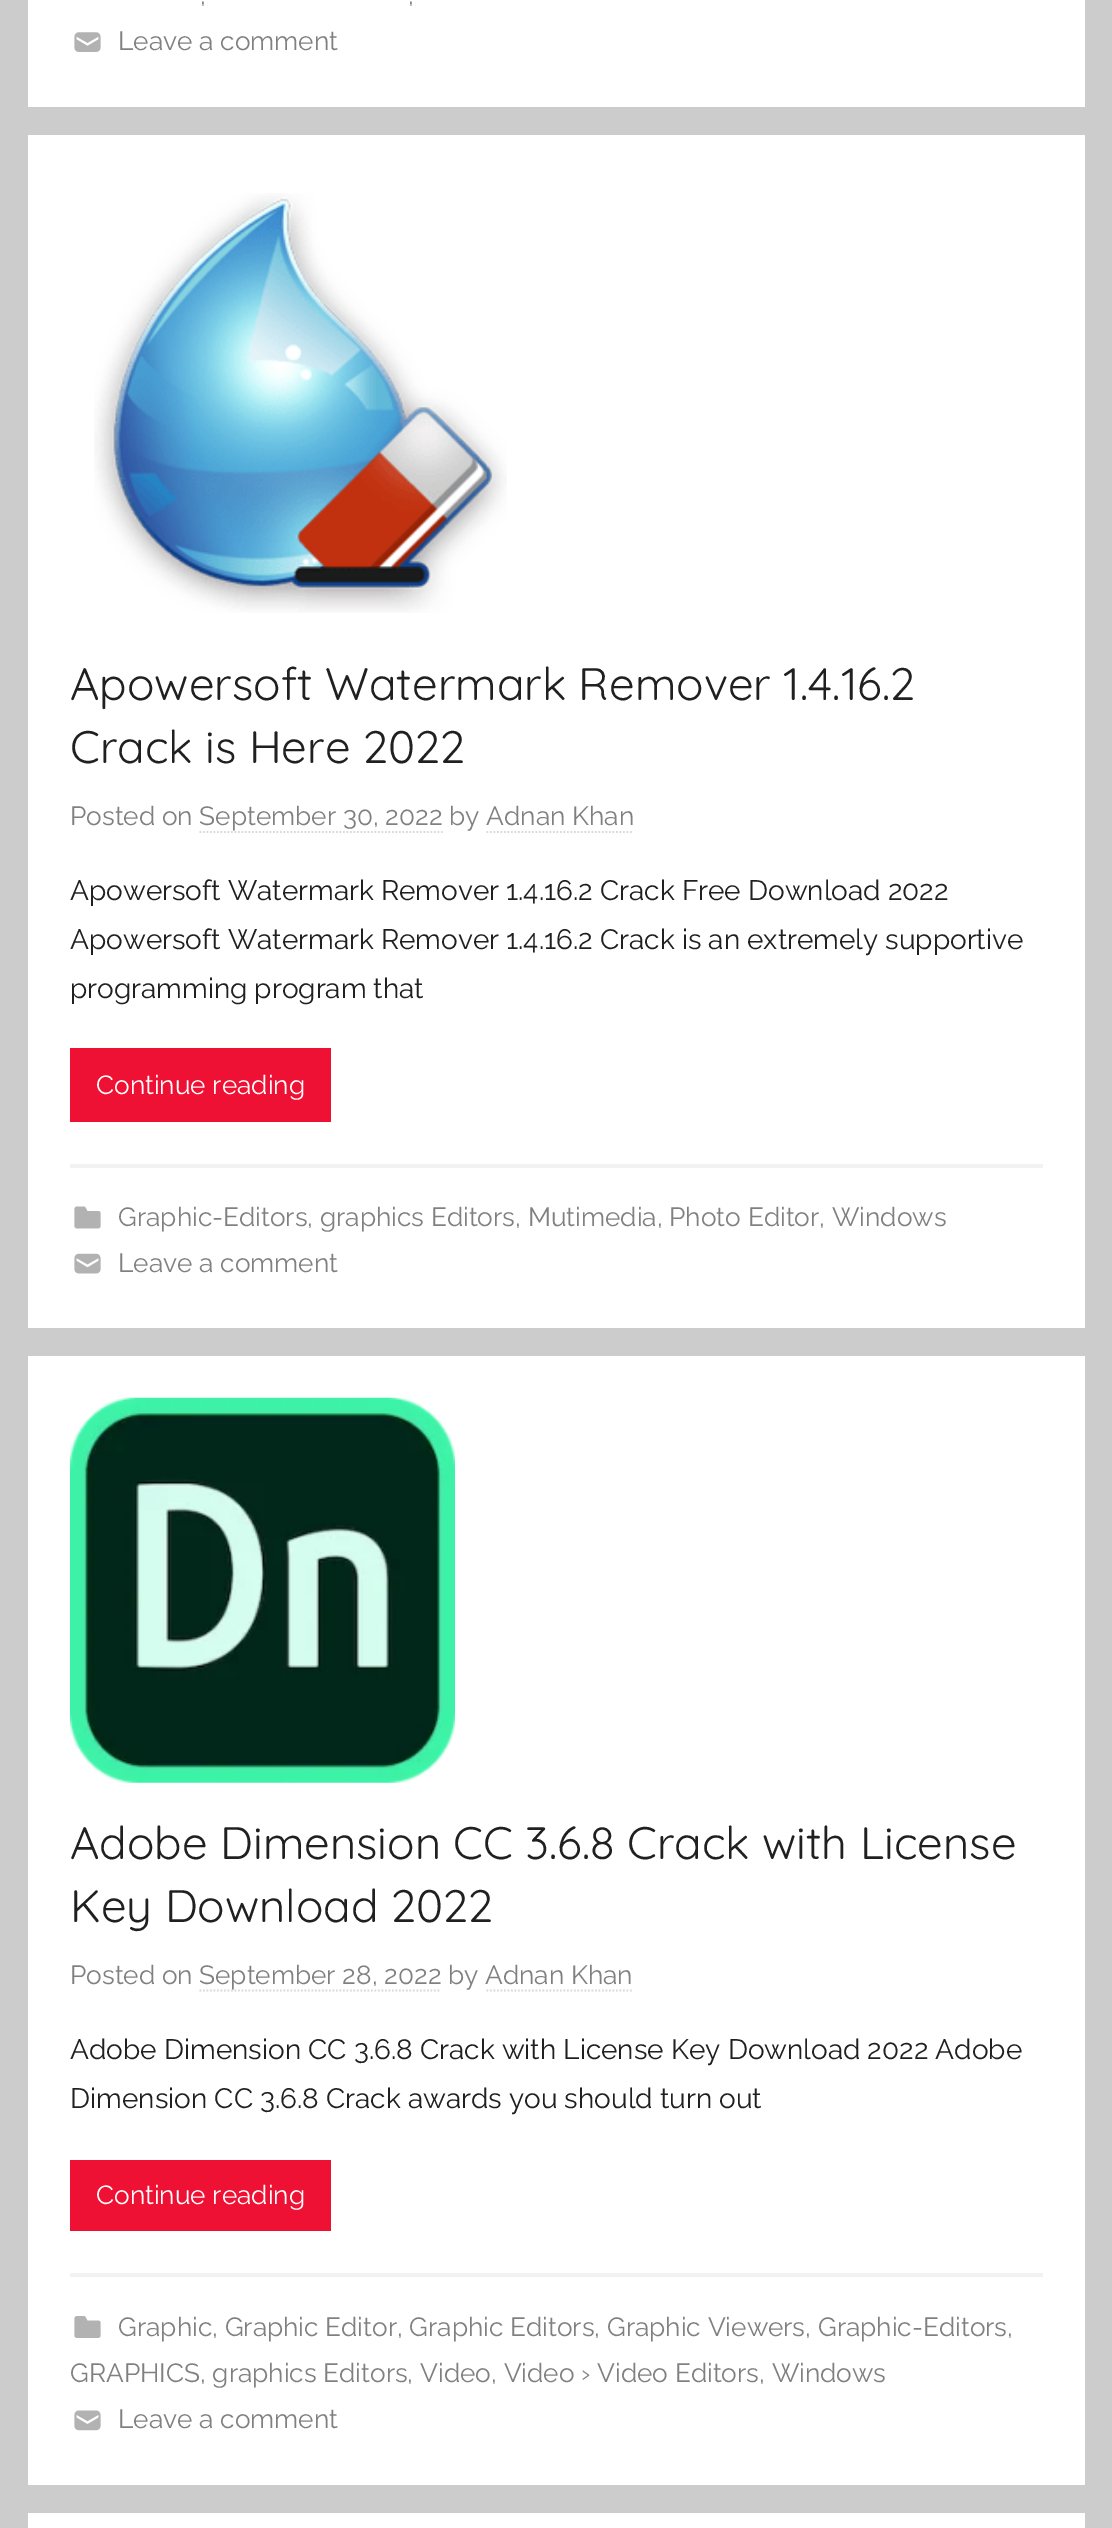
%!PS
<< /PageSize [1112 2528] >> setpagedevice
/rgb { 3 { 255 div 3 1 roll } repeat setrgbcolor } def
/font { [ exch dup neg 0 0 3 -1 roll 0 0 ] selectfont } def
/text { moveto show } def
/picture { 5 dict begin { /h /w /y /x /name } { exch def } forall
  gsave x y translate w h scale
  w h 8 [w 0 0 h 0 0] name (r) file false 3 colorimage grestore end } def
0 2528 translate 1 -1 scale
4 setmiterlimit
204 204 204 rgb
0 0 1112 2528 rectfill
255 255 255 rgb
28 0 1057 107 rectfill
(img_01.rgb) 74 32 27 20 picture
28 135 1057 1193 rectfill
(img_02.rgb) 94 193 413 420 picture
217 217 217 rgb
1.8 setlinewidth
[1.75 1.75] 0 setdash
199.5 832 moveto 243.5 0 rlineto stroke
486.5 832 moveto 147 0 rlineto stroke
238 17 51 rgb
70 1048 261 74 rectfill
242 242 242 rgb
70 1164 973 4 rectfill
(img_03.rgb) 74 1206 27 23 picture
(img_04.rgb) 74 1253 27 21 picture
255 255 255 rgb
28 1356 1057 1129 rectfill
(img_05.rgb) 70 1397 385 386 picture
217 217 217 rgb
199.5 1990.5 moveto 241.5 0 rlineto stroke
238 17 51 rgb
70 2160 261 71 rectfill
242 242 242 rgb
70 2273 973 4 rectfill
(img_06.rgb) 74 2316 27 22 picture
(img_07.rgb) 74 2410 27 21 picture
255 255 255 rgb
28 2513 1057 15 rectfill
/Raleway-Thin 26.25 font
128 128 128 rgb
(,) 200 4 text
(,) 408 4 text
(Leave a comment) 118 50 text
/Quicksand-Light 45.5 font
32 32 32 rgb
(Apowersoft Watermark Remover 1.4.16.2) 70 700 text
(Crack is Here 2022) 70 763 text
/Raleway-Thin 26.25 font
128 128 128 rgb
(Posted on September 30, 2022 by Adnan Khan) 70 825 text
/Raleway-Thin 28 font
32 32 32 rgb
(Apowersoft Watermark Remover 1.4.16.2 Crack Free Download 2022) 70 900 text
(Apowersoft Watermark Remover 1.4.16.2 Crack is an extremely supportive) 70 949 text
(programming program that) 70 998 text
/Raleway-Thin 26.25 font
255 255 255 rgb
(Continue reading) 96 1094 text
128 128 128 rgb
(Graphic-Editors, graphics Editors, Mutimedia, Photo Editor, Windows) 118 1226 text
(Leave a comment) 118 1272 text
/Quicksand-Light 45.5 font
32 32 32 rgb
(Adobe Dimension CC 3.6.8 Crack with License) 70 1859 text
(Key Download 2022) 70 1922 text
/Raleway-Thin 26.25 font
128 128 128 rgb
(Posted on) 70 1984 text
(September 28, 2022) 199 1984 text
(by Adnan Khan) 448 1984 text
217 217 217 rgb
486.5 1990.5 moveto 147 0 rlineto stroke
/Raleway-Thin 28 font
32 32 32 rgb
(Adobe Dimension CC 3.6.8 Crack with License Key Download 2022 Adobe) 70 2059 text
(Dimension CC 3.6.8 Crack awards you should turn out) 70 2108 text
/Raleway-Thin 26.25 font
255 255 255 rgb
(Continue reading) 96 2204 text
128 128 128 rgb
(Graphic, Graphic Editor, Graphic Editors, Graphic Viewers, Graphic-Editors,) 118 2336 text
(GRAPHICS, graphics Editors, Video, Video › Video Editors, Windows) 70 2382 text
(Leave a comment) 118 2428 text
showpage
